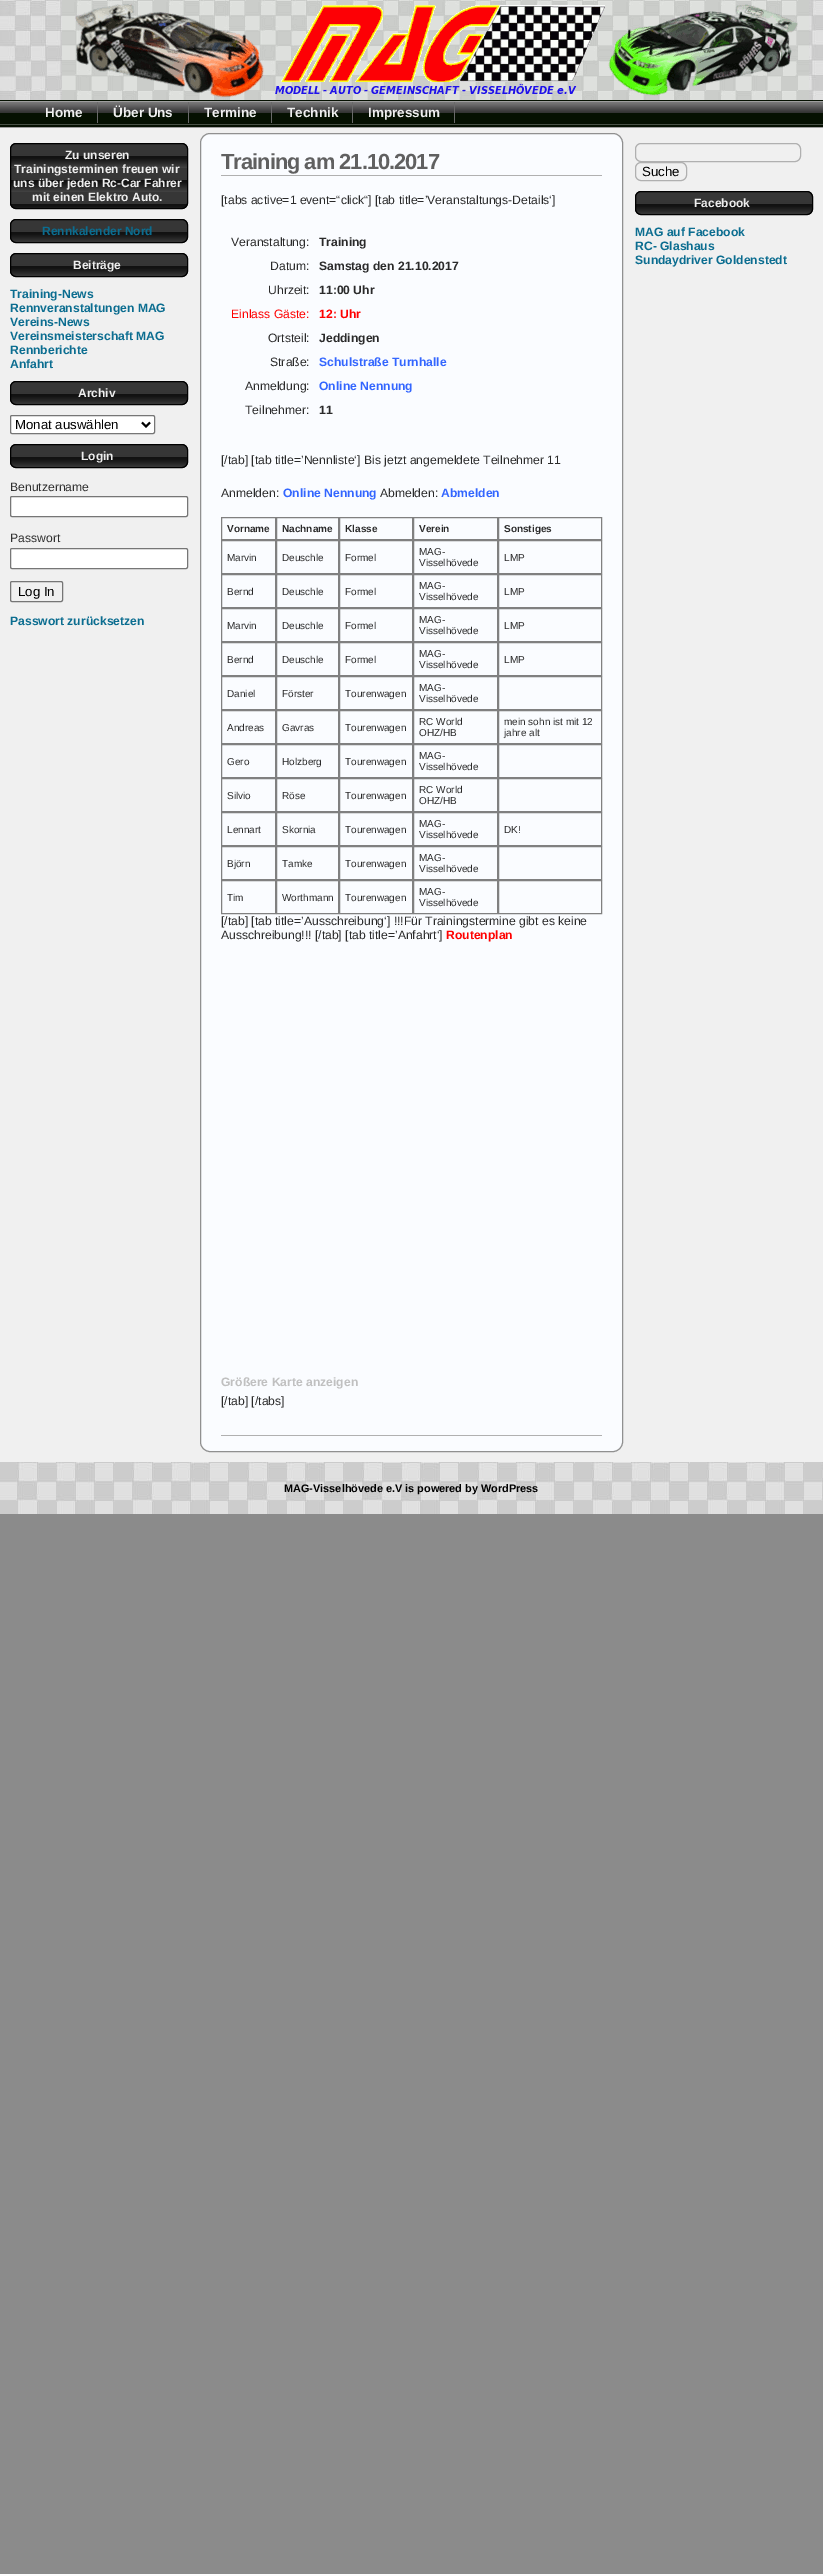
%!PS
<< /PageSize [823 2574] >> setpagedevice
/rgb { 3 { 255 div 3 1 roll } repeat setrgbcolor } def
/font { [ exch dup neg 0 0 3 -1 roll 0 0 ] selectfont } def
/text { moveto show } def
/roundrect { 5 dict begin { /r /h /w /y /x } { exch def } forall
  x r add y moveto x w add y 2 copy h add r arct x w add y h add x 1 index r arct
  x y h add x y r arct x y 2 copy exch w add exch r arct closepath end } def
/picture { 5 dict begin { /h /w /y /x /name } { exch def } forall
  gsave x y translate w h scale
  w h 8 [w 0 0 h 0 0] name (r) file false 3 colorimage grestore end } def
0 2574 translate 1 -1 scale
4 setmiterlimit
139 139 139 rgb
0 0 823 2574 rectfill
240 240 240 rgb
0 128 823 1334 rectfill
(img_01.rgb) 0 0 823 100 picture
(img_02.rgb) 62 0 747 100 picture
(img_03.rgb) 0 100 823 28 picture
105 105 105 rgb
97 102 1 21 rectfill
188 102 1 21 rectfill
271 102 1 21 rectfill
352 102 1 21 rectfill
454 102 1 21 rectfill
(img_04.rgb) 10 143 178 66 picture
0 0 0 rgb
10.5 143.5 177 65 5.5 roundrect stroke
(img_05.rgb) 10 219 178 24 picture
10.5 219.5 177 23 5.5 roundrect stroke
(img_06.rgb) 10 253 178 24 picture
10.5 253.5 177 23 5.5 roundrect stroke
(img_05.rgb) 10 381 178 24 picture
10.5 381.5 177 23 5.5 roundrect stroke
255 255 255 rgb
10.5 415.5 144 18 1.5 roundrect gsave fill grestore
118 118 118 rgb
stroke
0 0 0 rgb
2 setlinewidth
142 422.5 moveto 4 4 rlineto 4 -4 rlineto stroke
(img_05.rgb) 10 444 178 24 picture
1 setlinewidth
10.5 444.5 177 23 5.5 roundrect stroke
255 255 255 rgb
10.5 496.5 177 20 1.5 roundrect gsave fill grestore
118 118 118 rgb
stroke
255 255 255 rgb
10.5 548.5 177 20 1.5 roundrect gsave fill grestore
118 118 118 rgb
stroke
10.5 581.5 52 20 1.5 roundrect stroke
250 252 255 rgb
200.5 133.5 422 1318 9.5 roundrect gsave fill grestore
144 144 144 rgb
stroke
176 176 176 rgb
221 1435 381 1 rectfill
221 175 381 1 rectfill
128 128 128 rgb
221.5 517.5 54 22 rectstroke
276.5 517.5 62 22 rectstroke
339.5 517.5 73 22 rectstroke
413.5 517.5 84 22 rectstroke
498.5 517.5 103 22 rectstroke
221.5 540.5 54 33 rectstroke
276.5 540.5 62 33 rectstroke
339.5 540.5 73 33 rectstroke
413.5 540.5 84 33 rectstroke
498.5 540.5 103 33 rectstroke
221.5 574.5 54 33 rectstroke
276.5 574.5 62 33 rectstroke
339.5 574.5 73 33 rectstroke
413.5 574.5 84 33 rectstroke
498.5 574.5 103 33 rectstroke
221.5 608.5 54 33 rectstroke
276.5 608.5 62 33 rectstroke
339.5 608.5 73 33 rectstroke
413.5 608.5 84 33 rectstroke
498.5 608.5 103 33 rectstroke
221.5 642.5 54 33 rectstroke
276.5 642.5 62 33 rectstroke
339.5 642.5 73 33 rectstroke
413.5 642.5 84 33 rectstroke
498.5 642.5 103 33 rectstroke
221.5 676.5 54 33 rectstroke
276.5 676.5 62 33 rectstroke
339.5 676.5 73 33 rectstroke
413.5 676.5 84 33 rectstroke
498.5 676.5 103 33 rectstroke
221.5 710.5 54 33 rectstroke
276.5 710.5 62 33 rectstroke
339.5 710.5 73 33 rectstroke
413.5 710.5 84 33 rectstroke
498.5 710.5 103 33 rectstroke
221.5 744.5 54 33 rectstroke
276.5 744.5 62 33 rectstroke
339.5 744.5 73 33 rectstroke
413.5 744.5 84 33 rectstroke
498.5 744.5 103 33 rectstroke
221.5 778.5 54 33 rectstroke
276.5 778.5 62 33 rectstroke
339.5 778.5 73 33 rectstroke
413.5 778.5 84 33 rectstroke
498.5 778.5 103 33 rectstroke
221.5 812.5 54 33 rectstroke
276.5 812.5 62 33 rectstroke
339.5 812.5 73 33 rectstroke
413.5 812.5 84 33 rectstroke
498.5 812.5 103 33 rectstroke
221.5 846.5 54 33 rectstroke
276.5 846.5 62 33 rectstroke
339.5 846.5 73 33 rectstroke
413.5 846.5 84 33 rectstroke
498.5 846.5 103 33 rectstroke
221.5 880.5 54 33 rectstroke
276.5 880.5 62 33 rectstroke
339.5 880.5 73 33 rectstroke
413.5 880.5 84 33 rectstroke
498.5 880.5 103 33 rectstroke
176 176 176 rgb
635.5 143.5 165 18 5.5 roundrect stroke
635.5 162.5 51 18 5.5 roundrect stroke
(img_05.rgb) 635 191 178 24 picture
0 0 0 rgb
635.5 191.5 177 23 5.5 roundrect stroke
(img_07.rgb) 0 1462 823 52 picture
/LiberationSans-Bold 13.5 font
238 238 238 rgb
(Home) 45 117 text
(Über Uns) 113 117 text
(Termine) 204 117 text
(Technik) 287 117 text
(Impressum) 368 117 text
/LiberationSans-Bold 12 font
(Zu unseren) 65 159 text
(Trainingsterminen freuen wir) 14 173 text
(uns über jeden Rc-Car Fahrer) 13 187 text
(mit einen Elektro Auto.) 32 201 text
11 109 144 rgb
(Rennkalender Nord) 42 235 text
238 238 238 rgb
(Beiträge) 73 269 text
/LiberationSans-Bold 12.15 font
11 109 144 rgb
(Training-News) 10 298 text
(Rennveranstaltungen MAG) 10 312 text
(Vereins-News) 10 326 text
(Vereinsmeisterschaft MAG) 10 340 text
(Rennberichte) 10 354 text
(Anfahrt) 10 368 text
/LiberationSans-Bold 12 font
238 238 238 rgb
(Archiv) 78 397 text
/LiberationSans-Regular 13.25 font
0 0 0 rgb
(Monat auswählen) 15 429 text
/LiberationSans-Bold 12 font
238 238 238 rgb
(Login) 81 460 text
/LiberationSans-Regular 12.15 font
48 48 48 rgb
(Benutzername) 10 491 text
(Passwort) 10 542 text
/LiberationSans-Regular 13.25 font
0 0 0 rgb
(Log In) 18 596 text
/LiberationSans-Bold 12.15 font
11 109 144 rgb
(Passwort zurücksetzen) 10 625 text
/LiberationSans-Bold 21.9 font
96 96 96 rgb
221 169 moveto -1 0 (Training am 21.10.2017) ashow
/LiberationSans-Regular 12.15 font
42 42 42 rgb
([tabs active=1 event=“click“] [tab title=’Veranstaltungs-Details‘]) 221 204 text
(Veranstaltung:) 231 246 text
/LiberationSans-Bold 12.15 font
(Training) 319 246 text
/LiberationSans-Regular 12.15 font
(Datum:) 270 270 text
/LiberationSans-Bold 12.15 font
(Samstag den 21.10.2017) 319 270 text
/LiberationSans-Regular 12.15 font
(Uhrzeit:) 268 294 text
/LiberationSans-Bold 12.15 font
(11:00 Uhr) 319 294 text
/LiberationSans-Regular 12.15 font
255 0 0 rgb
(Einlass Gäste:) 231 318 text
/LiberationSans-Bold 12.15 font
(12: Uhr) 319 318 text
/LiberationSans-Regular 12.15 font
42 42 42 rgb
(Ortsteil:) 268 342 text
/LiberationSans-Bold 12.15 font
(Jeddingen) 319 342 text
/LiberationSans-Regular 12.15 font
(Straße:) 270 366 text
/LiberationSans-Bold 12.15 font
51 102 255 rgb
(Schulstraße Turnhalle) 319 366 text
/LiberationSans-Regular 12.15 font
42 42 42 rgb
(Anmeldung:) 245 390 text
/LiberationSans-Bold 12.15 font
51 102 255 rgb
(Online Nennung) 319 390 text
/LiberationSans-Regular 12.15 font
42 42 42 rgb
(Teilnehmer:) 245 414 text
/LiberationSans-Bold 12.15 font
(11) 319 414 text
/LiberationSans-Regular 12.15 font
([/tab] [tab title=’Nennliste‘] Bis jetzt angemeldete Teilnehmer 11) 221 464 text
(Anmelden:) 221 497 text
/LiberationSans-Bold 12.15 font
51 102 255 rgb
(Online Nennung) 283 497 text
/LiberationSans-Regular 12.15 font
42 42 42 rgb
(Abmelden:) 380 497 text
/LiberationSans-Bold 12.15 font
51 102 255 rgb
(Abmelden) 441 497 text
/LiberationSans-Bold 10 font
42 42 42 rgb
(Vorname) 227 532 text
(Nachname) 282 532 text
(Klasse) 345 532 text
(Verein) 419 532 text
(Sonstiges) 504 532 text
/LiberationSans-Regular 10 font
(Marvin) 227 561 text
(Deuschle) 282 561 text
(Formel) 345 561 text
(MAG-) 419 555 text
(Visselhövede) 419 566 text
(LMP) 504 561 text
(Bernd) 227 595 text
(Deuschle) 282 595 text
(Formel) 345 595 text
(MAG-) 419 589 text
(Visselhövede) 419 600 text
(LMP) 504 595 text
(Marvin) 227 629 text
(Deuschle) 282 629 text
(Formel) 345 629 text
(MAG-) 419 623 text
(Visselhövede) 419 634 text
(LMP) 504 629 text
(Bernd) 227 663 text
(Deuschle) 282 663 text
(Formel) 345 663 text
(MAG-) 419 657 text
(Visselhövede) 419 668 text
(LMP) 504 663 text
(Daniel) 227 697 text
(Förster) 282 697 text
(Tourenwagen) 345 697 text
(MAG-) 419 691 text
(Visselhövede) 419 702 text
(Andreas) 227 731 text
(Gavras) 282 731 text
(Tourenwagen) 345 731 text
(RC World) 419 725 text
(OHZ/HB) 419 736 text
(mein sohn ist mit 12) 504 725 text
(jahre alt) 504 736 text
(Gero) 227 765 text
(Holzberg) 282 765 text
(Tourenwagen) 345 765 text
(MAG-) 419 759 text
(Visselhövede) 419 770 text
(Silvio) 227 799 text
(Röse) 282 799 text
(Tourenwagen) 345 799 text
(RC World) 419 793 text
(OHZ/HB) 419 804 text
(Lennart) 227 833 text
(Skornia) 282 833 text
(Tourenwagen) 345 833 text
(MAG-) 419 827 text
(Visselhövede) 419 838 text
(DK!) 504 833 text
(Björn) 227 867 text
(Tamke) 282 867 text
(Tourenwagen) 345 867 text
(MAG-) 419 861 text
(Visselhövede) 419 872 text
(Tim) 227 901 text
(Worthmann) 282 901 text
(Tourenwagen) 345 901 text
(MAG-) 419 895 text
(Visselhövede) 419 906 text
/LiberationSans-Regular 12.15 font
([/tab] [tab title=’Ausschreibung‘] !!!Für Trainingstermine gibt es keine) 221 925 text
(Ausschreibung!!! [/tab] [tab title=’Anfahrt‘]) 221 939 text
/LiberationSans-Bold 12.15 font
255 0 0 rgb
(Routenplan) 446 939 text
192 192 192 rgb
(Größere Karte anzeigen) 221 1386 text
/LiberationSans-Regular 12.15 font
42 42 42 rgb
([/tab] [/tabs]) 221 1405 text
/LiberationSans-Regular 13.25 font
0 0 0 rgb
(Suche) 642 176 text
/LiberationSans-Bold 12 font
238 238 238 rgb
(Facebook) 694 207 text
/LiberationSans-Bold 12.15 font
11 109 144 rgb
(MAG auf Facebook) 635 236 text
(RC- Glashaus) 635 250 text
(Sundaydriver Goldenstedt) 635 264 text
/LiberationSans-Bold 10.9 font
0 0 0 rgb
(MAG-Visselhövede e.V is powered by WordPress) 284 1492 text
showpage
